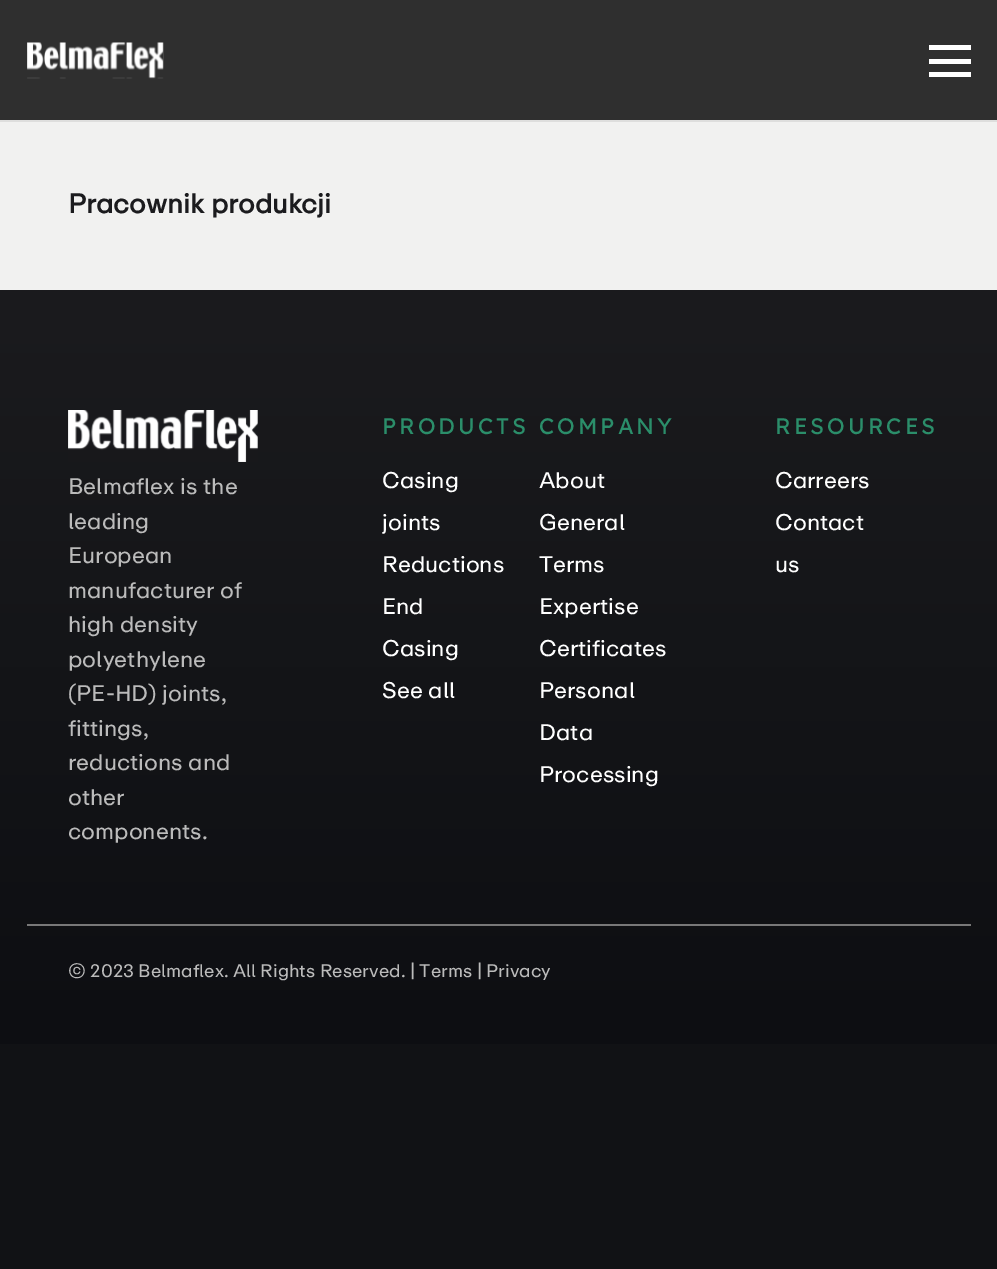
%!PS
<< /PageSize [997 1269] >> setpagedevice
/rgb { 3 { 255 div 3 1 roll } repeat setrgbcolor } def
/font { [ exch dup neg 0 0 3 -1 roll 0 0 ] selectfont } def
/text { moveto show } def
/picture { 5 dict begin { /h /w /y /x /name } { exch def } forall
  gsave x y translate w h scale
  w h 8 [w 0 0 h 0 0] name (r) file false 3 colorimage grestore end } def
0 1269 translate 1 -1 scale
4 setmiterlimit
17 18 21 rgb
0 0 997 1269 rectfill
241 241 240 rgb
0 122 997 168 rectfill
222 222 221 rgb
0 120 moveto 0 2 rlineto 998 0 rlineto 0 -120 rlineto 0 118 rlineto closepath fill
47 47 47 rgb
0 0 997 120 rectfill
(img_01.rgb) 27 42 137 37 picture
255 255 255 rgb
929 59 42 5 rectfill
929 45 42 5 rectfill
929 72 42 5 rectfill
gsave 0 290 moveto 997 0 rlineto 0 754 rlineto -997 0 rlineto closepath clip newpath
<< /ShadingType 2 /ColorSpace /DeviceRGB /Coords [499 289 499 1044] /Extend [true true] /Function << /FunctionType 2 /Domain [0 1] /C0 [0.106 0.106 0.118] /C1 [0.051 0.055 0.071] /N 1 >> >> shfill grestore
(img_02.rgb) 68 410 190 52 picture
120 120 120 rgb
27 924 944 2 rectfill
/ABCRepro-Bold 27 font
27 27 30 rgb
(Pracownik produkcji) 68 213 text
/ABCRepro-Regular 22.5 font
187 187 187 rgb
(Belmaflex is the) 68 494 text
(leading) 68 529 text
(European) 68 563 text
(manufacturer of) 68 598 text
(high density) 68 632 text
(polyethylene) 68 667 text
(\(PE-HD\) joints,) 68 701 text
(fittings,) 68 736 text
(reductions and) 68 770 text
(other) 68 805 text
(components.) 68 839 text
/Lexend-Regular 22.5 font
43 142 106 rgb
382 434 moveto 3 0 (PRODUCTS) ashow
/ABCRepro-Regular 22.5 font
255 255 255 rgb
(Casing) 382 488 text
(joints) 382 530 text
(Reductions) 382 572 text
(End) 382 614 text
(Casing) 382 656 text
(See all) 382 698 text
/Lexend-Regular 22.5 font
43 142 106 rgb
539 434 moveto 3 0 (COMPANY) ashow
/ABCRepro-Regular 22.5 font
255 255 255 rgb
(About) 539 488 text
(General) 539 530 text
(Terms) 539 572 text
(Expertise) 539 614 text
(Certificates) 539 656 text
(Personal) 539 698 text
(Data) 539 740 text
(Processing) 539 782 text
/Lexend-Regular 22.5 font
43 142 106 rgb
775 434 moveto 3 0 (RESOURCES) ashow
/ABCRepro-Regular 22.5 font
255 255 255 rgb
(Carreers) 775 488 text
(Contact) 775 530 text
(us) 775 572 text
/ABCRepro-Regular 18 font
187 187 187 rgb
(© 2023 Belmaflex. All Rights Reserved. | Terms | Privacy) 68 977 text
showpage
